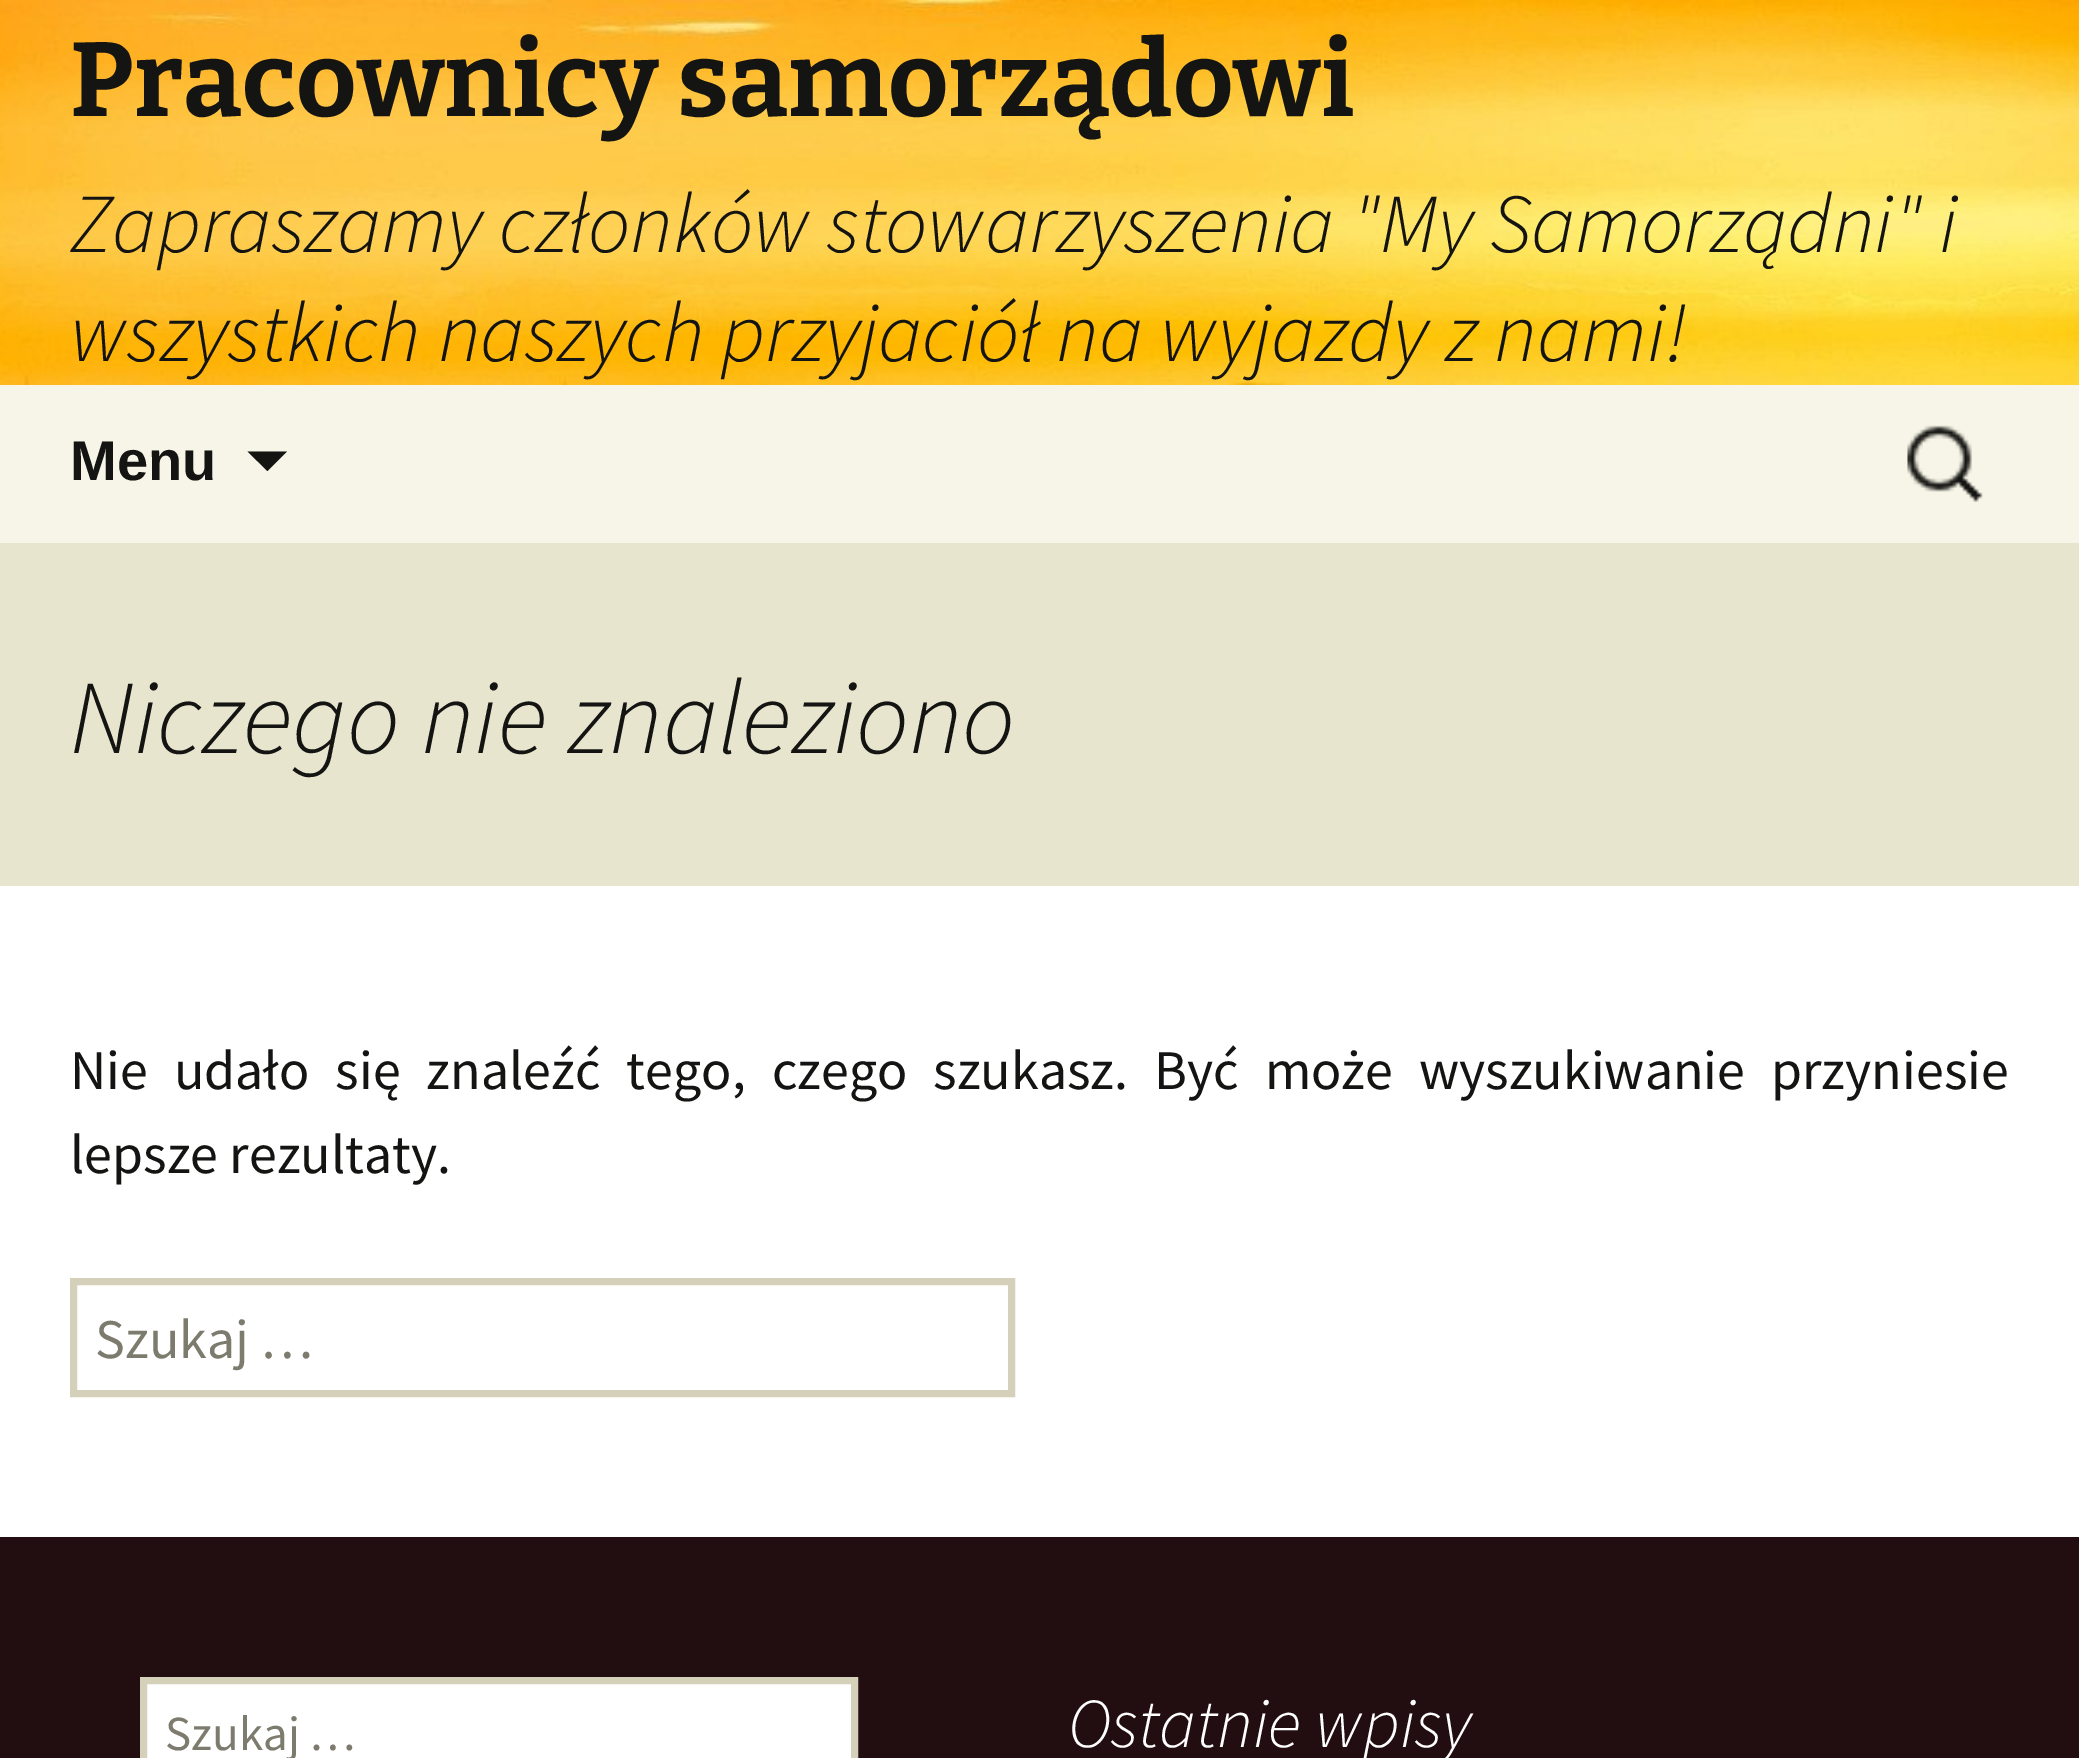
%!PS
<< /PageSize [2079 1758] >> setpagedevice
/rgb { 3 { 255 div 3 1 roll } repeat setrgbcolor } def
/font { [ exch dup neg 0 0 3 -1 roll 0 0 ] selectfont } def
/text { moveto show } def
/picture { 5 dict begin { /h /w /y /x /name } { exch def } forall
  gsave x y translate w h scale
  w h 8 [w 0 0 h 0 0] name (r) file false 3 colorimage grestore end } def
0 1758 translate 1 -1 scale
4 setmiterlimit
255 255 255 rgb
0 0 2079 1758 rectfill
(img_01.rgb) 0 0 2079 385 picture
247 245 231 rgb
0 385 2079 158 rectfill
20 20 18 rgb
247.5 451.5 moveto 20 19.5 rlineto 19.5 -19.5 rlineto closepath fill
(img_02.rgb) 1907 425 76 77 picture
232 229 206 rgb
0 543 2079 343 rectfill
212 208 186 rgb
7 setlinewidth
73.5 1281.5 938 112 rectstroke
34 14 16 rgb
0 1537 2079 221 rectfill
255 255 255 rgb
143.5 1680.5 moveto 711 0 rlineto 0 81 rlineto -711 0 rlineto closepath gsave fill grestore
212 208 186 rgb
stroke
/Bitter-Thin 105 font
20 20 18 rgb
(Pracownicy samorządowi) 70 116 text
/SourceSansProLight-LightItalic 84 font
(Zapraszamy członków stowarzyszenia "My Samorządni" i) 70 252 text
(wszystkich naszych przyjaciół na wyjazdy z nami!) 70 361 text
/LiberationSans-Bold 56 font
(Menu) 70 480 text
/SourceSansProLight-LightItalic 105 font
(Niczego nie znaleziono) 70 753 text
/SourceSansPro-Regular 56 font
70 1089 moveto 14.75 0 32 (Nie udało się znaleźć tego, czego szukasz. Być może wyszukiwanie przyniesie) widthshow
(lepsze rezultaty.) 70 1173 text
125 123 109 rgb
(Szukaj …) 95 1358 text
/SourceSansPro-Regular 49 font
(Szukaj …) 165 1750 text
/SourceSansProLight-LightItalic 70 font
255 255 255 rgb
(Ostatnie wpisy) 1068 1747 text
showpage
